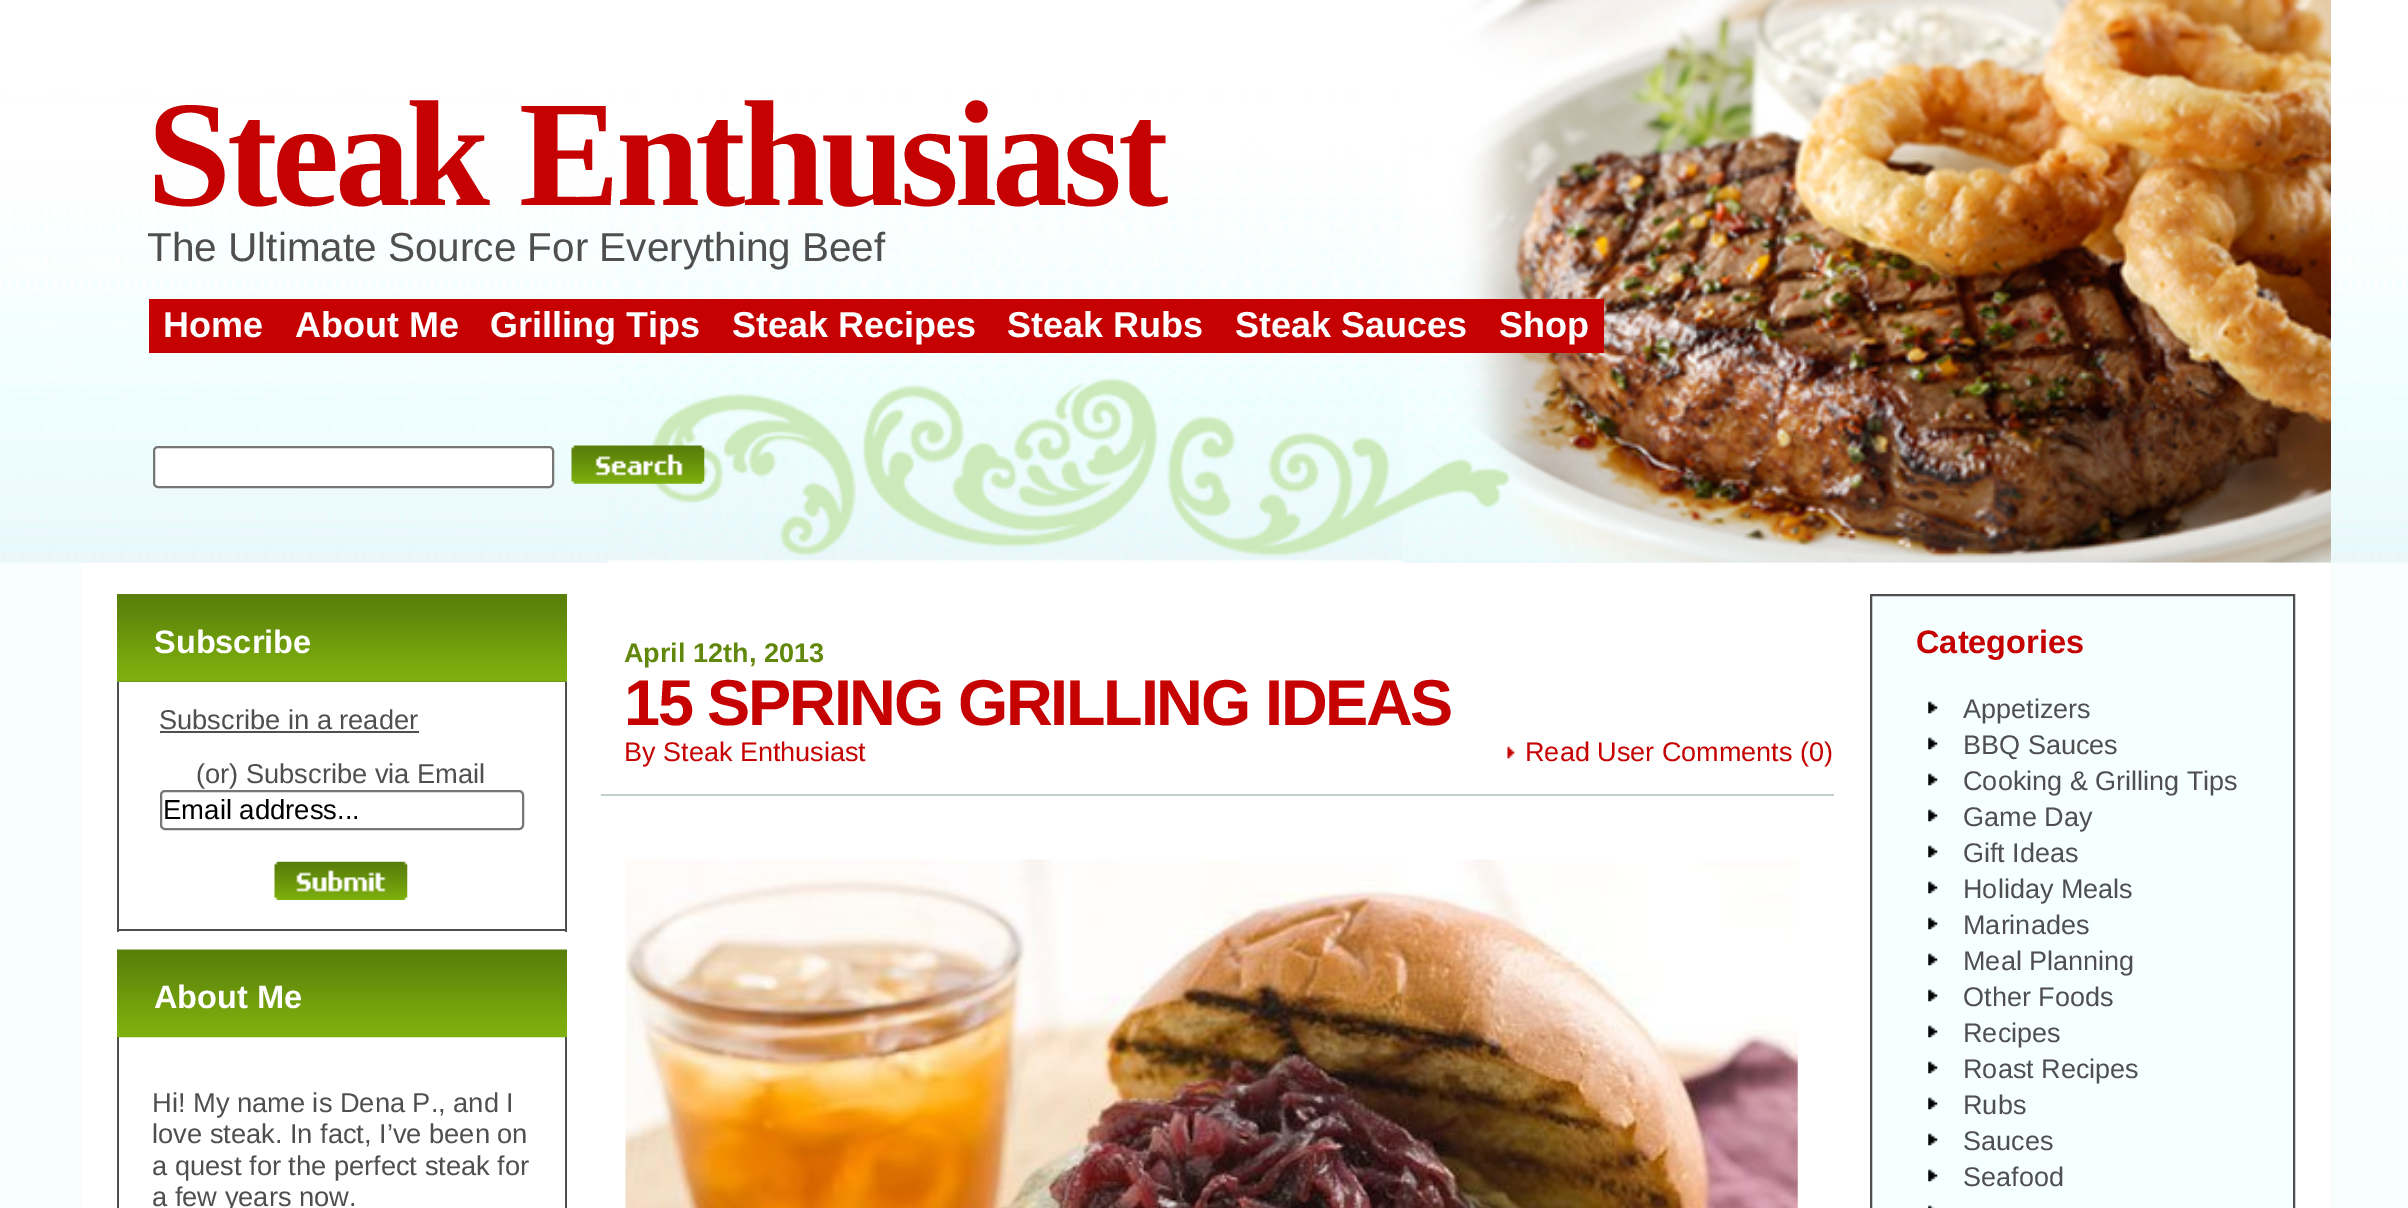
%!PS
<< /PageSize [2408 1208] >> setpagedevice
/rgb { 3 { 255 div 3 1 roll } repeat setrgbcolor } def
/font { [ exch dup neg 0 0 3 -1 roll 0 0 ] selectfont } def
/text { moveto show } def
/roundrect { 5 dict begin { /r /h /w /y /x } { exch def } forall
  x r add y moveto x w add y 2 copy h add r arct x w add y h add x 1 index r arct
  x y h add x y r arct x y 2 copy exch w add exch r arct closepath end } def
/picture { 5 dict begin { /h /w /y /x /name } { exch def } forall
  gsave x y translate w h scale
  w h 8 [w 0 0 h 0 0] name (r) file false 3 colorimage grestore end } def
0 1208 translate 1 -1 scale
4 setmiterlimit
248 253 253 rgb
0 0 2408 1208 rectfill
(img_01.rgb) 0 0 2408 563 picture
(img_02.rgb) 607 0 1724 563 picture
197 1 2 rgb
149 299 1455 54 rectfill
255 255 255 rgb
154 447 399 40 4 roundrect gsave fill grestore
118 118 118 rgb
2 setlinewidth
stroke
(img_03.rgb) 571 445 134 39 picture
255 255 255 rgb
81 563 2250 645 rectfill
(img_04.rgb) 117 594 450 88 picture
79 79 79 rgb
565 682 2 250 rectfill
117 929 450 2 rectfill
117 682 2 250 rectfill
160 731 259 2 rectfill
118 118 118 rgb
161 791 362 38 4 roundrect stroke
(img_05.rgb) 274 861 134 39 picture
(img_06.rgb) 117 949 450 89 picture
79 79 79 rgb
565 1037 2 171 rectfill
117 1037 2 171 rectfill
(img_07.rgb) 1507 746 8 13 picture
194 208 208 rgb
601 794 1233 2 rectfill
(img_08.rgb) 625 859 1173 349 picture
246 255 255 rgb
1871 595 moveto 423 0 rlineto 0 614 rlineto -423 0 rlineto closepath gsave fill grestore
79 79 79 rgb
stroke
(img_09.rgb) 1928 701 10 13 picture
(img_09.rgb) 1928 737 10 13 picture
(img_09.rgb) 1928 773 10 13 picture
(img_09.rgb) 1928 809 10 13 picture
(img_09.rgb) 1928 845 10 13 picture
(img_09.rgb) 1928 881 10 13 picture
(img_09.rgb) 1928 917 10 13 picture
(img_09.rgb) 1928 953 10 13 picture
(img_09.rgb) 1928 989 10 13 picture
(img_09.rgb) 1928 1025 10 13 picture
(img_09.rgb) 1928 1061 10 13 picture
(img_09.rgb) 1928 1097 10 13 picture
(img_09.rgb) 1928 1133 10 13 picture
(img_10.rgb) 1928 1169 10 13 picture
(img_11.rgb) 1928 1205 7 3 picture
/LiberationSerif-Bold 151.25 font
197 1 2 rgb
147 205 moveto -4.5 0 (Steak Enthusiast) ashow
/LiberationSans-Regular 40.5 font
79 79 79 rgb
(The Ultimate Source For Everything Beef) 147 261 text
/LiberationSans-Bold 36 font
255 255 255 rgb
(Home) 163 337 text
(About Me) 295 337 text
(Grilling Tips) 490 337 text
(Steak Recipes) 732 337 text
(Steak Rubs) 1007 337 text
(Steak Sauces) 1235 337 text
(Shop) 1499 337 text
/LiberationSans-Bold 32.5 font
(Subscribe) 154 653 text
/LiberationSans-Regular 27.25 font
79 79 79 rgb
(Subscribe in a reader) 159 729 text
(\(or\) Subscribe via Email) 196 783 text
/LiberationSans-Regular 27.5 font
0 0 0 rgb
(Email address...) 163 819 text
/LiberationSans-Bold 32.5 font
255 255 255 rgb
(About Me) 154 1008 text
/LiberationSans-Regular 27.25 font
79 79 79 rgb
(Hi! My name is Dena P., and I) 152 1112 text
(love steak. In fact, I’ve been on) 152 1143 text
(a quest for the perfect steak for) 152 1175 text
(a few years now.) 152 1206 text
/LiberationSans-Bold 27 font
97 136 10 rgb
(April 12th, 2013) 624 662 text
/LiberationSans-Bold 64.75 font
197 1 2 rgb
624 725 moveto -2.25 0 (15 SPRING GRILLING IDEAS) ashow
/LiberationSans-Regular 27 font
(By Steak Enthusiast) 624 761 text
(Read User Comments \(0\)) 1525 761 text
/LiberationSans-Bold 32.5 font
(Categories) 1916 653 text
/LiberationSans-Regular 27 font
79 79 79 rgb
(Appetizers) 1963 718 text
(BBQ Sauces) 1963 754 text
(Cooking & Grilling Tips) 1963 790 text
(Game Day) 1963 826 text
(Gift Ideas) 1963 862 text
(Holiday Meals) 1963 898 text
(Marinades) 1963 934 text
(Meal Planning) 1963 970 text
(Other Foods) 1963 1006 text
(Recipes) 1963 1042 text
(Roast Recipes) 1963 1078 text
(Rubs) 1963 1114 text
(Sauces) 1963 1150 text
(Seafood) 1963 1186 text
showpage
